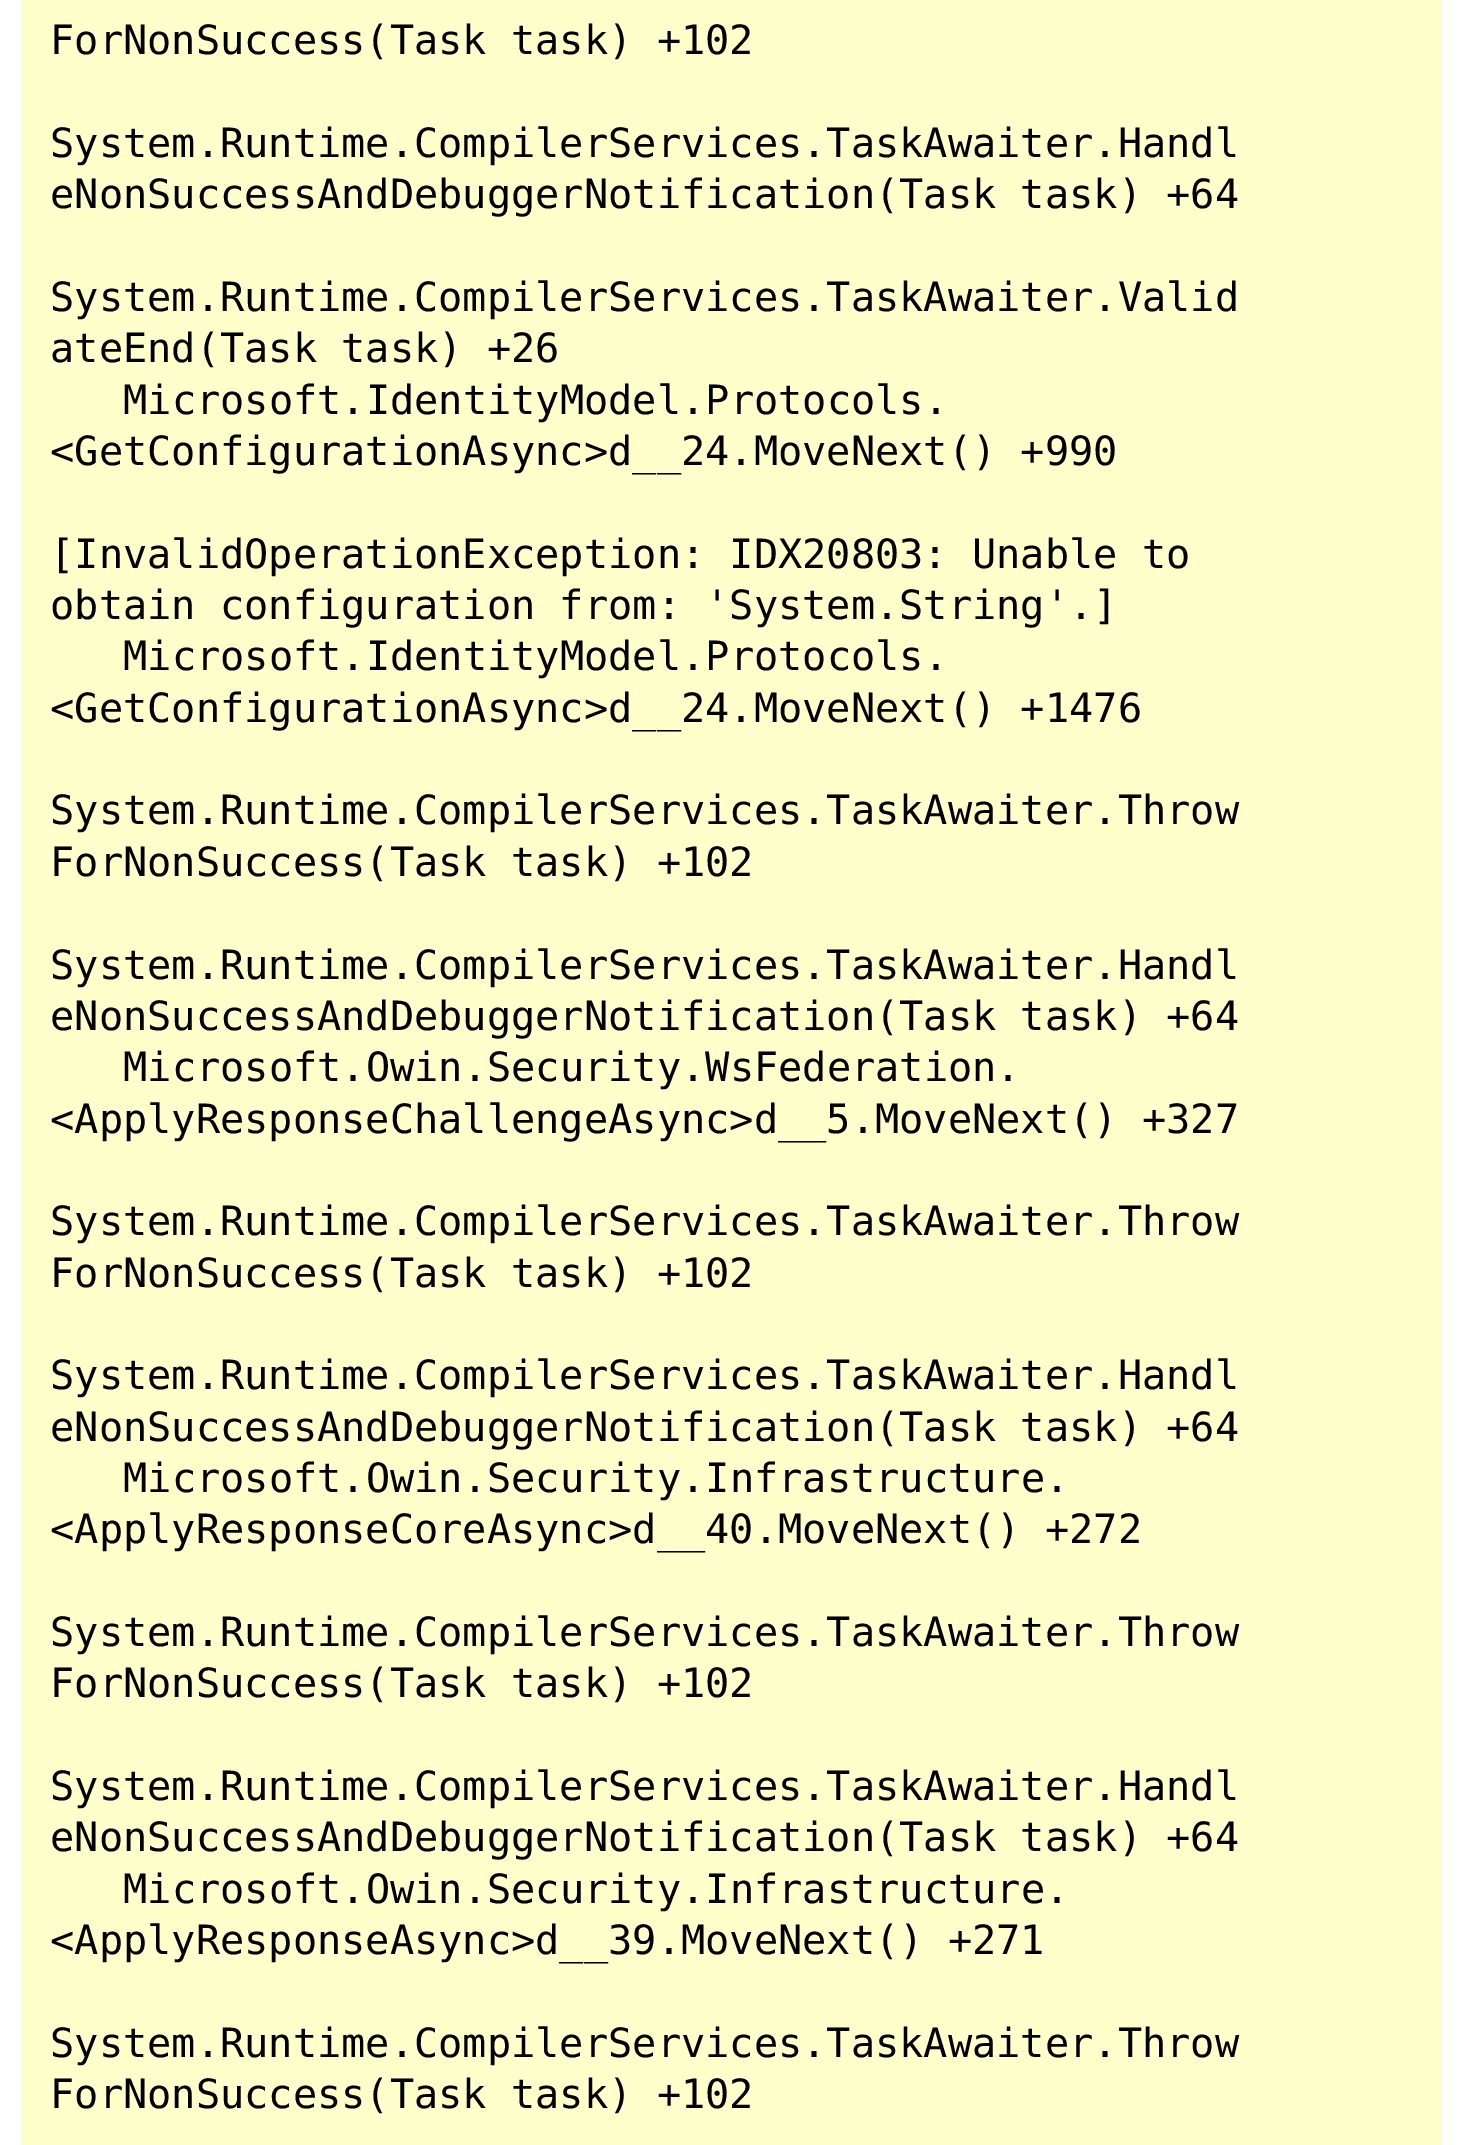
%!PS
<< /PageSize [1462 2145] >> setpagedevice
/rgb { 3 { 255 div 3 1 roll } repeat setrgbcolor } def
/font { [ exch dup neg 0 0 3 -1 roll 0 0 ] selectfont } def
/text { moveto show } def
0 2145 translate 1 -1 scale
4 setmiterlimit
255 255 255 rgb
0 0 1462 2145 rectfill
255 255 204 rgb
22 0 1419 2145 rectfill
/DejaVuSansMono-Regular 40.3 font
0 0 0 rgb
(ForNonSuccess\(Task task\) +102) 50 54 text
(System.Runtime.CompilerServices.TaskAwaiter.Handl) 50 157 text
(eNonSuccessAndDebuggerNotification\(Task task\) +64) 50 208 text
(System.Runtime.CompilerServices.TaskAwaiter.Valid) 50 311 text
(ateEnd\(Task task\) +26) 50 362 text
(Microsoft.IdentityModel.Protocols.) 123 414 text
(<GetConfigurationAsync>d__24.MoveNext\(\) +990) 50 465 text
([InvalidOperationException: IDX20803: Unable to) 50 568 text
(obtain configuration from: 'System.String'.]) 50 619 text
(Microsoft.IdentityModel.Protocols.) 123 670 text
(<GetConfigurationAsync>d__24.MoveNext\(\) +1476) 50 722 text
(System.Runtime.CompilerServices.TaskAwaiter.Throw) 50 824 text
(ForNonSuccess\(Task task\) +102) 50 876 text
(System.Runtime.CompilerServices.TaskAwaiter.Handl) 50 979 text
(eNonSuccessAndDebuggerNotification\(Task task\) +64) 50 1030 text
(Microsoft.Owin.Security.WsFederation.) 123 1081 text
(<ApplyResponseChallengeAsync>d__5.MoveNext\(\) +327) 50 1133 text
(System.Runtime.CompilerServices.TaskAwaiter.Throw) 50 1235 text
(ForNonSuccess\(Task task\) +102) 50 1287 text
(System.Runtime.CompilerServices.TaskAwaiter.Handl) 50 1389 text
(eNonSuccessAndDebuggerNotification\(Task task\) +64) 50 1441 text
(Microsoft.Owin.Security.Infrastructure.) 123 1492 text
(<ApplyResponseCoreAsync>d__40.MoveNext\(\) +272) 50 1543 text
(System.Runtime.CompilerServices.TaskAwaiter.Throw) 50 1646 text
(ForNonSuccess\(Task task\) +102) 50 1697 text
(System.Runtime.CompilerServices.TaskAwaiter.Handl) 50 1800 text
(eNonSuccessAndDebuggerNotification\(Task task\) +64) 50 1851 text
(Microsoft.Owin.Security.Infrastructure.) 123 1903 text
(<ApplyResponseAsync>d__39.MoveNext\(\) +271) 50 1954 text
(System.Runtime.CompilerServices.TaskAwaiter.Throw) 50 2057 text
(ForNonSuccess\(Task task\) +102) 50 2108 text
showpage
